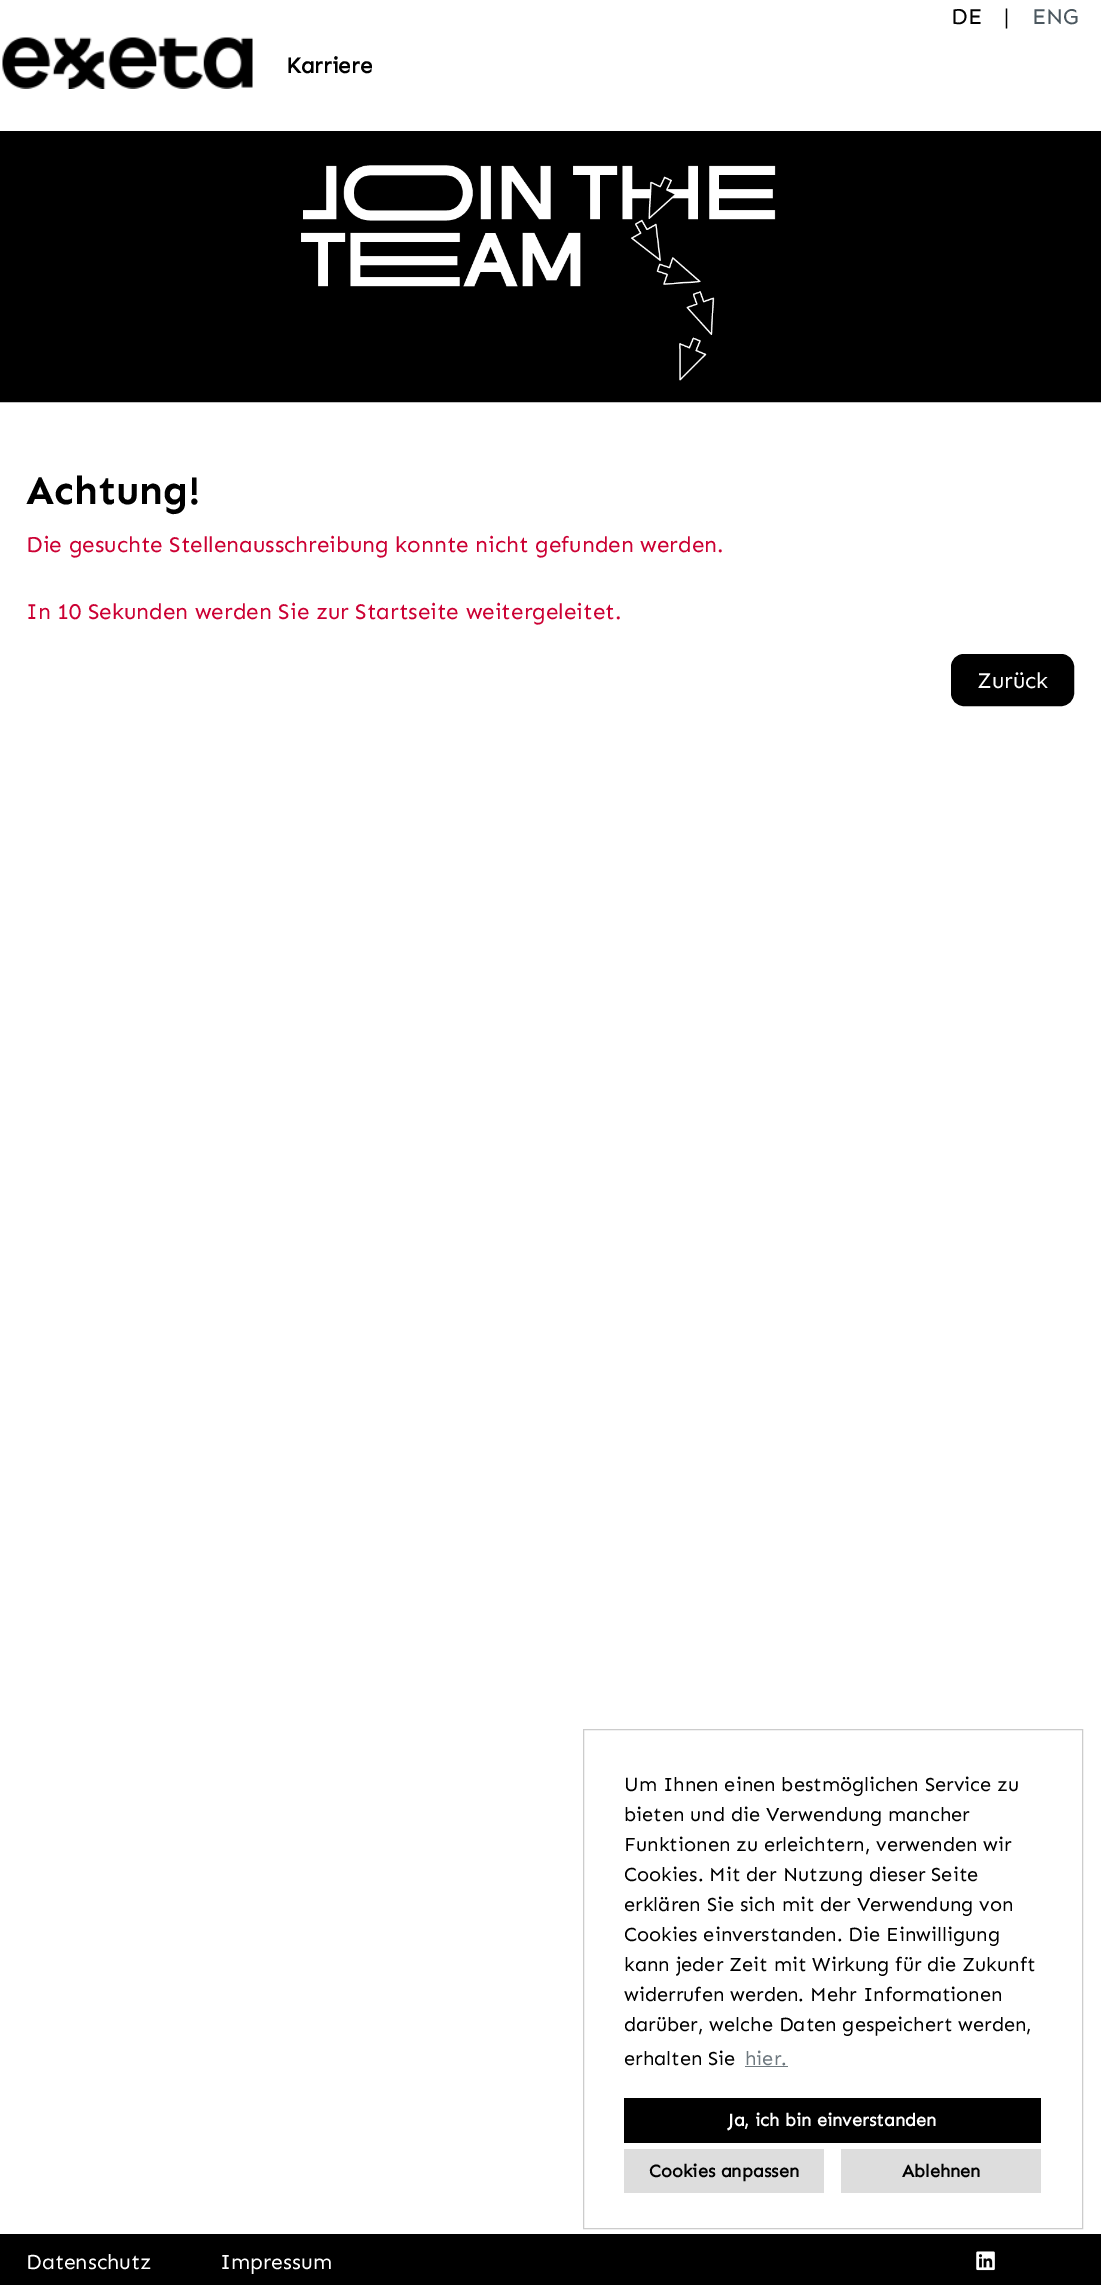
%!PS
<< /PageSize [1101 2285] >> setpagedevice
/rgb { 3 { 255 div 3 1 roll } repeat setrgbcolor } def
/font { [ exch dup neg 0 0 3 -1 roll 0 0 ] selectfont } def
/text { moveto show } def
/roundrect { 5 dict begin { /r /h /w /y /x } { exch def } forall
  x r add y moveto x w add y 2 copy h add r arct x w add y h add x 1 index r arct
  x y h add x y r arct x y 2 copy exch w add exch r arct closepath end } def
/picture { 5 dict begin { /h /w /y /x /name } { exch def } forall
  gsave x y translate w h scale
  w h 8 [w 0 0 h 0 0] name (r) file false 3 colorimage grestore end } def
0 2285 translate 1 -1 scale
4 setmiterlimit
255 255 255 rgb
0 0 1101 2285 rectfill
(img_01.rgb) 2 37 251 52 picture
(img_02.rgb) 0 131 1101 272 picture
0 0 0 rgb
951.5 654.5 122 51 12.5 roundrect gsave fill grestore
stroke
0 2234 1101 51 rectfill
(img_03.rgb) 976 2251 19 20 picture
204 204 204 rgb
583.5 1729.5 499 499 rectstroke
111 121 127 rgb
745 2066 43 1 rectfill
0 0 0 rgb
624 2098 417 45 rectfill
221 221 221 rgb
624 2149 200 44 rectfill
841 2149 200 44 rectfill
/Sen-Regular 22.5 font
0 0 0 rgb
(DE) 951 24 text
(|) 1004 24 text
75 87 95 rgb
(ENG) 1032 24 text
/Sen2-Bold 22.5 font
0 0 0 rgb
(Karriere) 286 73 text
/Sen-Bold 40.5 font
(Achtung!) 26 504 text
/Sen-Regular 22.5 font
204 0 51 rgb
(Die gesuchte Stellenausschreibung konnte nicht gefunden werden.) 26 552 text
(In 10 Sekunden werden Sie zur Startseite weitergeleitet.) 26 619 text
255 255 255 rgb
(Zurück) 977 688 text
/Sen-Regular 21.25 font
(Datenschutz) 26 2269 text
(Impressum) 220 2269 text
/Sen-Regular 20 font
0 0 0 rgb
(Um Ihnen einen bestmöglichen Service zu) 624 1791 text
(bieten und die Verwendung mancher) 624 1821 text
(Funktionen zu erleichtern, verwenden wir) 624 1851 text
(Cookies. Mit der Nutzung dieser Seite) 624 1881 text
(erklären Sie sich mit der Verwendung von) 624 1911 text
(Cookies einverstanden. Die Einwilligung) 624 1941 text
(kann jeder Zeit mit Wirkung für die Zukunft) 624 1971 text
(widerrufen werden. Mehr Informationen) 624 2001 text
(darüber, welche Daten gespeichert werden,) 624 2031 text
(erhalten Sie) 624 2065 text
111 121 127 rgb
(hier.) 745 2065 text
/Sen2-Bold 18 font
255 255 255 rgb
(Ja, ich bin einverstanden) 728 2126 text
0 0 0 rgb
(Cookies anpassen) 649 2177 text
(Ablehnen) 902 2177 text
showpage
